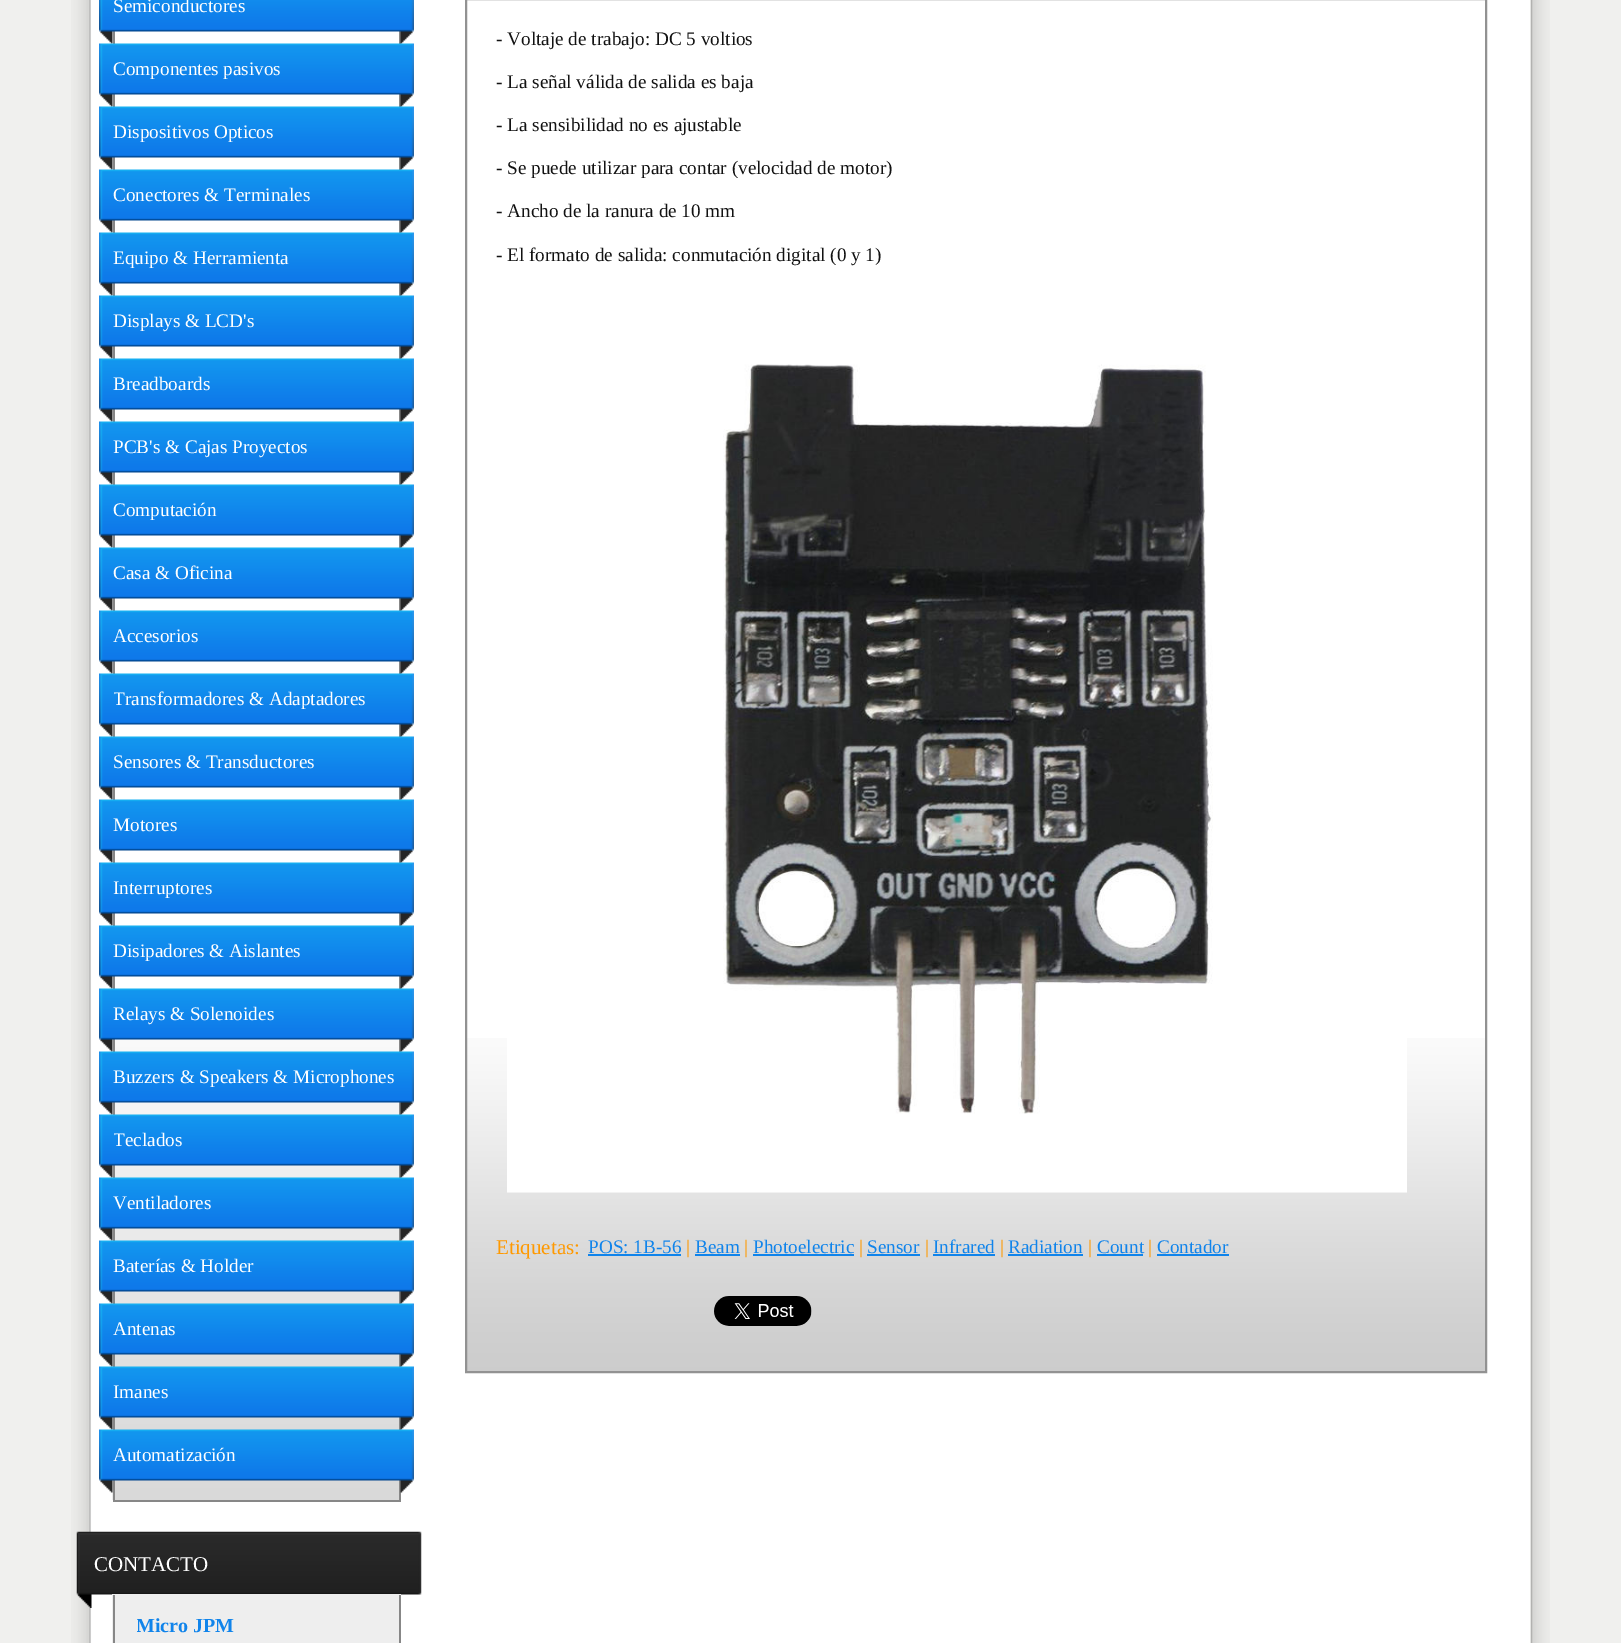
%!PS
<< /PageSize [1621 1643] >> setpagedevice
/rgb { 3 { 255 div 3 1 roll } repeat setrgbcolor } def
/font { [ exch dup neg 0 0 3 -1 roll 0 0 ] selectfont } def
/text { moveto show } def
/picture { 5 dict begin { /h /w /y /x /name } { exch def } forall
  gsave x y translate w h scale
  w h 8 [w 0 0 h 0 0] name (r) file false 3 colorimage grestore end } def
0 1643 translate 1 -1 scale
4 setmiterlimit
240 240 238 rgb
0 0 1621 1643 rectfill
(img_01.rgb) 71 0 1479 1643 picture
(img_02.rgb) 112 1039 287 461 picture
135 135 135 rgb
399 31 2 1471 rectfill
113 1500 288 2 rectfill
113 31 2 1471 rectfill
(img_03.rgb) 99 0 315 44 picture
(img_04.rgb) 99 43 315 64 picture
(img_04.rgb) 99 106 315 64 picture
(img_04.rgb) 99 169 315 64 picture
(img_04.rgb) 99 232 315 64 picture
(img_04.rgb) 99 295 315 64 picture
(img_04.rgb) 99 358 315 64 picture
(img_04.rgb) 99 421 315 64 picture
(img_04.rgb) 99 484 315 64 picture
(img_04.rgb) 99 547 315 64 picture
(img_04.rgb) 99 610 315 64 picture
(img_04.rgb) 99 673 315 64 picture
(img_04.rgb) 99 736 315 64 picture
(img_04.rgb) 99 799 315 64 picture
(img_04.rgb) 99 862 315 64 picture
(img_04.rgb) 99 925 315 64 picture
(img_05.rgb) 99 988 315 64 picture
(img_06.rgb) 99 1051 315 64 picture
(img_07.rgb) 99 1114 315 64 picture
(img_08.rgb) 99 1177 315 64 picture
(img_09.rgb) 99 1240 315 64 picture
(img_10.rgb) 99 1303 315 64 picture
(img_11.rgb) 99 1366 315 64 picture
(img_12.rgb) 99 1429 315 64 picture
(img_13.rgb) 76 1531 346 77 picture
238 238 238 rgb
112 1594 289 49 rectfill
135 135 135 rgb
399 1595 2 48 rectfill
113 1595 2 48 rectfill
(img_14.rgb) 467 1038 1018 333 picture
146 146 146 rgb
2 setlinewidth
466 -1 1020 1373 rectstroke
(img_15.rgb) 507 364 900 829 picture
16 132 235 rgb
588 1254 93 2 rectfill
695 1254 45 2 rectfill
753 1254 101 2 rectfill
867 1254 53 2 rectfill
933 1254 62 2 rectfill
1008 1254 75 2 rectfill
1097 1254 46 2 rectfill
1157 1254 72 2 rectfill
(img_16.rgb) 714 1296 98 30 picture
/LiberationSerif-Regular 19.2 font
255 255 255 rgb
(Semiconductores) 113 12 text
(Componentes pasivos) 113 75 text
(Dispositivos Opticos) 113 138 text
(Conectores & Terminales) 113 201 text
(Equipo & Herramienta) 113 264 text
(Displays & LCD's) 113 327 text
(Breadboards) 113 390 text
(PCB's & Cajas Proyectos) 113 453 text
(Computación) 113 516 text
(Casa & Oficina) 113 579 text
(Accesorios) 113 642 text
gsave
114 674 285 52 rectclip
(Transformadores & Adaptadores) 113 705 text
grestore
(Sensores & Transductores) 113 768 text
(Motores) 113 831 text
(Interruptores) 113 894 text
(Disipadores & Aislantes) 113 957 text
(Relays & Solenoides) 113 1020 text
(Buzzers & Speakers & Microphones) 113 1083 text
gsave
114 1115 285 52 rectclip
(Teclados) 113 1146 text
grestore
(Ventiladores) 113 1209 text
(Baterías & Holder) 113 1272 text
(Antenas) 113 1335 text
(Imanes) 113 1398 text
(Automatización) 113 1461 text
/LiberationSerif-Regular 21 font
(CONTACTO) 94 1571 text
gsave
137 1610 240 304 rectclip
/LiberationSerif-Bold 20 font
16 132 235 rgb
(Micro JPM) 136 1632 text
grestore
/LiberationSerif-Regular 19.2 font
18 18 18 rgb
(- Voltaje de trabajo: DC 5 voltios) 496 45 text
(- La señal válida de salida es baja) 496 88 text
(- La sensibilidad no es ajustable) 496 131 text
(- Se puede utilizar para contar \(velocidad de motor\)) 496 174 text
(- Ancho de la ranura de 10 mm) 496 217 text
(- El formato de salida: conmutación digital \(0 y 1\)) 496 261 text
/LiberationSerif-Regular 21 font
255 153 0 rgb
(Etiquetas:) 496 1254 text
/LiberationSerif-Regular 19.2 font
16 132 235 rgb
(POS: 1B-56) 588 1253 text
255 153 0 rgb
(|) 686 1253 text
16 132 235 rgb
(Beam) 695 1253 text
255 153 0 rgb
(|) 744 1253 text
16 132 235 rgb
(Photoelectric) 753 1253 text
255 153 0 rgb
(|) 859 1253 text
16 132 235 rgb
(Sensor) 867 1253 text
255 153 0 rgb
(|) 925 1253 text
16 132 235 rgb
(Infrared) 933 1253 text
255 153 0 rgb
(|) 1000 1253 text
16 132 235 rgb
(Radiation) 1008 1253 text
255 153 0 rgb
(|) 1088 1253 text
16 132 235 rgb
(Count) 1097 1253 text
255 153 0 rgb
(|) 1148 1253 text
16 132 235 rgb
(Contador) 1157 1253 text
showpage
